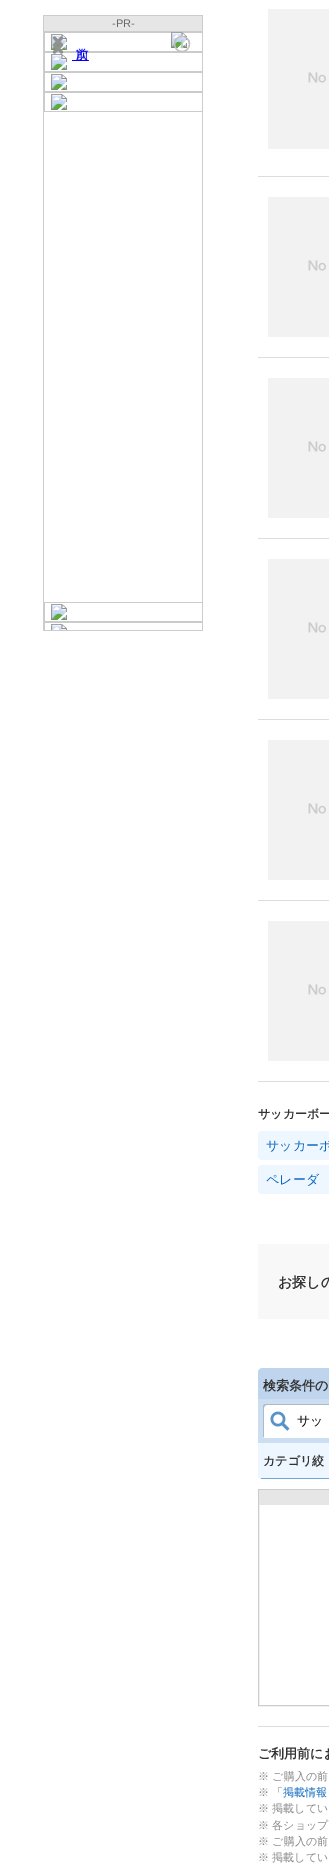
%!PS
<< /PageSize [329 1871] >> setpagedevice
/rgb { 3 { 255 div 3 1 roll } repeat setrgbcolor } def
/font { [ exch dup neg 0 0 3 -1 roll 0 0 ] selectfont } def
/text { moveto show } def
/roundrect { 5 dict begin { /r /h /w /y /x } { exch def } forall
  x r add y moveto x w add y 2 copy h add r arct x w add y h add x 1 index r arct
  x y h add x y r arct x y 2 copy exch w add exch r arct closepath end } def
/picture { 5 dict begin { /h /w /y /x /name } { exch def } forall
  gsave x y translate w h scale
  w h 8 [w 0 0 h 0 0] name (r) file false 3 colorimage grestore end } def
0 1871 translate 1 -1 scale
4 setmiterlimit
255 255 255 rgb
0 0 329 1871 rectfill
230 230 230 rgb
44 16 158 15 rectfill
204 204 204 rgb
43 15 160 1 rectfill
202 15 1 16 rectfill
43 15 1 16 rectfill
(img_01.rgb) 43 31 160 600 picture
(img_02.rgb) 268 9 61 140 picture
221 221 221 rgb
258 176 71 1 rectfill
(img_02.rgb) 268 197 61 140 picture
258 357 71 1 rectfill
(img_02.rgb) 268 378 61 140 picture
258 538 71 1 rectfill
(img_02.rgb) 268 559 61 140 picture
258 719 71 1 rectfill
(img_02.rgb) 268 740 61 140 picture
258 900 71 1 rectfill
(img_02.rgb) 268 921 61 140 picture
258 1081 71 1 rectfill
238 246 255 rgb
258 1131 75 29 4 roundrect fill
258 1165 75 29 4 roundrect fill
248 248 248 rgb
258 1244 71 75 rectfill
204 222 242 rgb
258 1368 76 111 5 roundrect fill
116 166 219 rgb
261 1478 68 1 rectfill
191 213 238 rgb
263 1368 moveto 66 0 rlineto 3 0 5 2 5 5 rcurveto 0 26 rlineto -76 0 rlineto 0 -26 rlineto 0 -3 2 -5 5 -5 rcurveto closepath fill
255 255 255 rgb
266 1404 moveto 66 0 rlineto 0 34 rlineto -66 0 rlineto -1.5 0 -3 -1.5 -3 -3 rcurveto 0 -28 rlineto 0 -1.5 1.5 -3 3 -3 rcurveto closepath fill
173 186 199 rgb
267 1405 moveto 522 0 rlineto 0 -1 rlineto -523 0 rlineto -2 0 -3 1 -3 3 rcurveto 0 28 rlineto 0 1 0 2 1 2 rcurveto 0 -24 rlineto 0 -3 -1 -8 3 -8 rcurveto closepath fill
(img_03.rgb) 270 1411 20 20 picture
238 246 255 rgb
258 1443 71 35 rectfill
204 204 204 rgb
258.5 1489.5 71 216 rectstroke
230 230 230 rgb
259 1490 70 15 rectfill
221 221 221 rgb
258 1726 71 1 rectfill
/LiberationSans-Regular 11 font
102 102 102 rgb
(-PR-) 112 27 text
/WenQuanYiZenHei-Bold 12 font
51 51 51 rgb
(サッカーボー) 258 1118 text
/WenQuanYiZenHei-Medium 13 font
8 103 191 rgb
(サッカーボ) 266 1150 text
(ペレーダ) 266 1184 text
/WenQuanYiZenHei-Bold 14 font
51 51 51 rgb
(お探しの) 278 1287 text
/WenQuanYiZenHei-Bold 13 font
(検索条件の) 263 1390 text
/WenQuanYiZenHei-Medium 13 font
0 0 0 rgb
(サッ) 297 1425 text
/WenQuanYiZenHei-Bold 12 font
51 51 51 rgb
(カテゴリ絞) 263 1465 text
/WenQuanYiZenHei-Bold 13 font
(ご利用前にお) 258 1758 text
/WenQuanYiZenHei-Medium 11 font
136 136 136 rgb
(※ ご購入の前) 258 1780 text
(※ 「) 258 1796 text
8 103 191 rgb
(掲載情報) 283 1796 text
136 136 136 rgb
(※ 掲載してい) 258 1812 text
(※ 各ショップ) 258 1829 text
(※ ご購入の前) 258 1845 text
(※ 掲載してい) 258 1861 text
showpage
